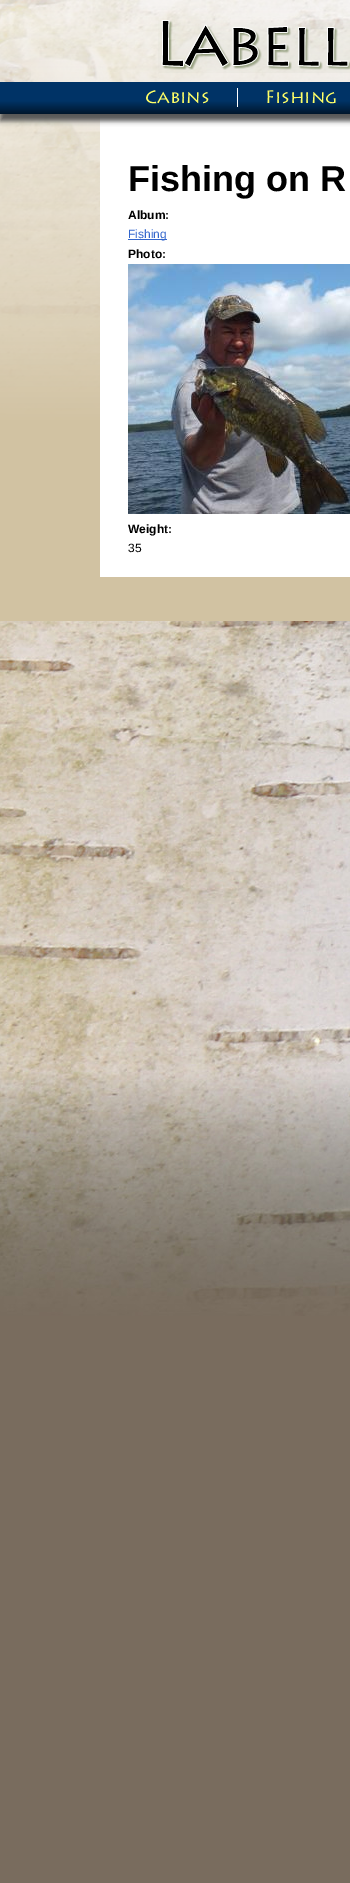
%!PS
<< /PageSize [350 1883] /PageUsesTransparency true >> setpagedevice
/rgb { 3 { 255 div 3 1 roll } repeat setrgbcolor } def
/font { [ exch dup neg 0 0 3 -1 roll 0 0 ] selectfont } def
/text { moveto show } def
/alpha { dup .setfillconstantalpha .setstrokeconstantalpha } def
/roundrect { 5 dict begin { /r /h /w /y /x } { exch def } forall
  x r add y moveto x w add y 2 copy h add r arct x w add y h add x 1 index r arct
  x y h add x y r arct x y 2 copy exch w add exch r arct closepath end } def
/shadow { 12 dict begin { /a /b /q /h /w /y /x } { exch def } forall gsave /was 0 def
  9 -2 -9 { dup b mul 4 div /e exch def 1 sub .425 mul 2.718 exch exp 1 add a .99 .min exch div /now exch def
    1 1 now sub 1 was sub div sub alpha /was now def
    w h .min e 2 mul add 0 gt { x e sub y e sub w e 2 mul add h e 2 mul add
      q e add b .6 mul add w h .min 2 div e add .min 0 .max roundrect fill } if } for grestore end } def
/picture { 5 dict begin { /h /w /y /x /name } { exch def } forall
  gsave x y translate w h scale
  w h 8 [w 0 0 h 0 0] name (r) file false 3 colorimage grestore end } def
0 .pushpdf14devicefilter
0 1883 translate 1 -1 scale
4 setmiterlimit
121 108 94 rgb
0 0 350 1883 rectfill
(img_01.rgb) 0 0 350 1316 picture
(img_02.rgb) 158 20 192 53 picture
255 255 255 rgb
100 115 250 462 rectfill
85 85 85 rgb
0 89 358 32 0 2.5 1 shadow
gsave 0 82 moveto 350 0 rlineto 0 32 rlineto -350 0 rlineto closepath clip newpath
<< /ShadingType 2 /ColorSpace /DeviceRGB /Coords [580 82 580 114] /Extend [true true] /Function << /FunctionType 3 /Domain [0 1] /Functions [<< /FunctionType 2 /Domain [0 1] /C0 [0 0.2 0.4] /C1 [0 0.2 0.4] /N 1 >> << /FunctionType 2 /Domain [0 1] /C0 [0 0.2 0.4] /C1 [0 0.086 0.173] /N 1 >>] /Bounds [0.59] /Encode [0 1 0 1] >> >> shfill grestore
255 255 255 rgb
237 88 1 19 rectfill
51 102 204 rgb
128 239 39 1 rectfill
(img_03.rgb) 128 264 222 250 picture
/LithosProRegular-Regular 18 font
255 255 102 rgb
(Cabins) 145 103 text
(Fishing) 265 103 text
/LiberationSans-Bold 36 font
0 0 0 rgb
(Fishing on R) 128 191 text
/LiberationSans-Bold 12 font
(Album:) 128 219 text
/LiberationSans-Regular 12 font
51 102 204 rgb
(Fishing) 128 238 text
/LiberationSans-Bold 12 font
0 0 0 rgb
(Photo:) 128 258 text
(Weight:) 128 533 text
/LiberationSans-Regular 12 font
(35) 128 552 text
.poppdf14devicefilter showpage
